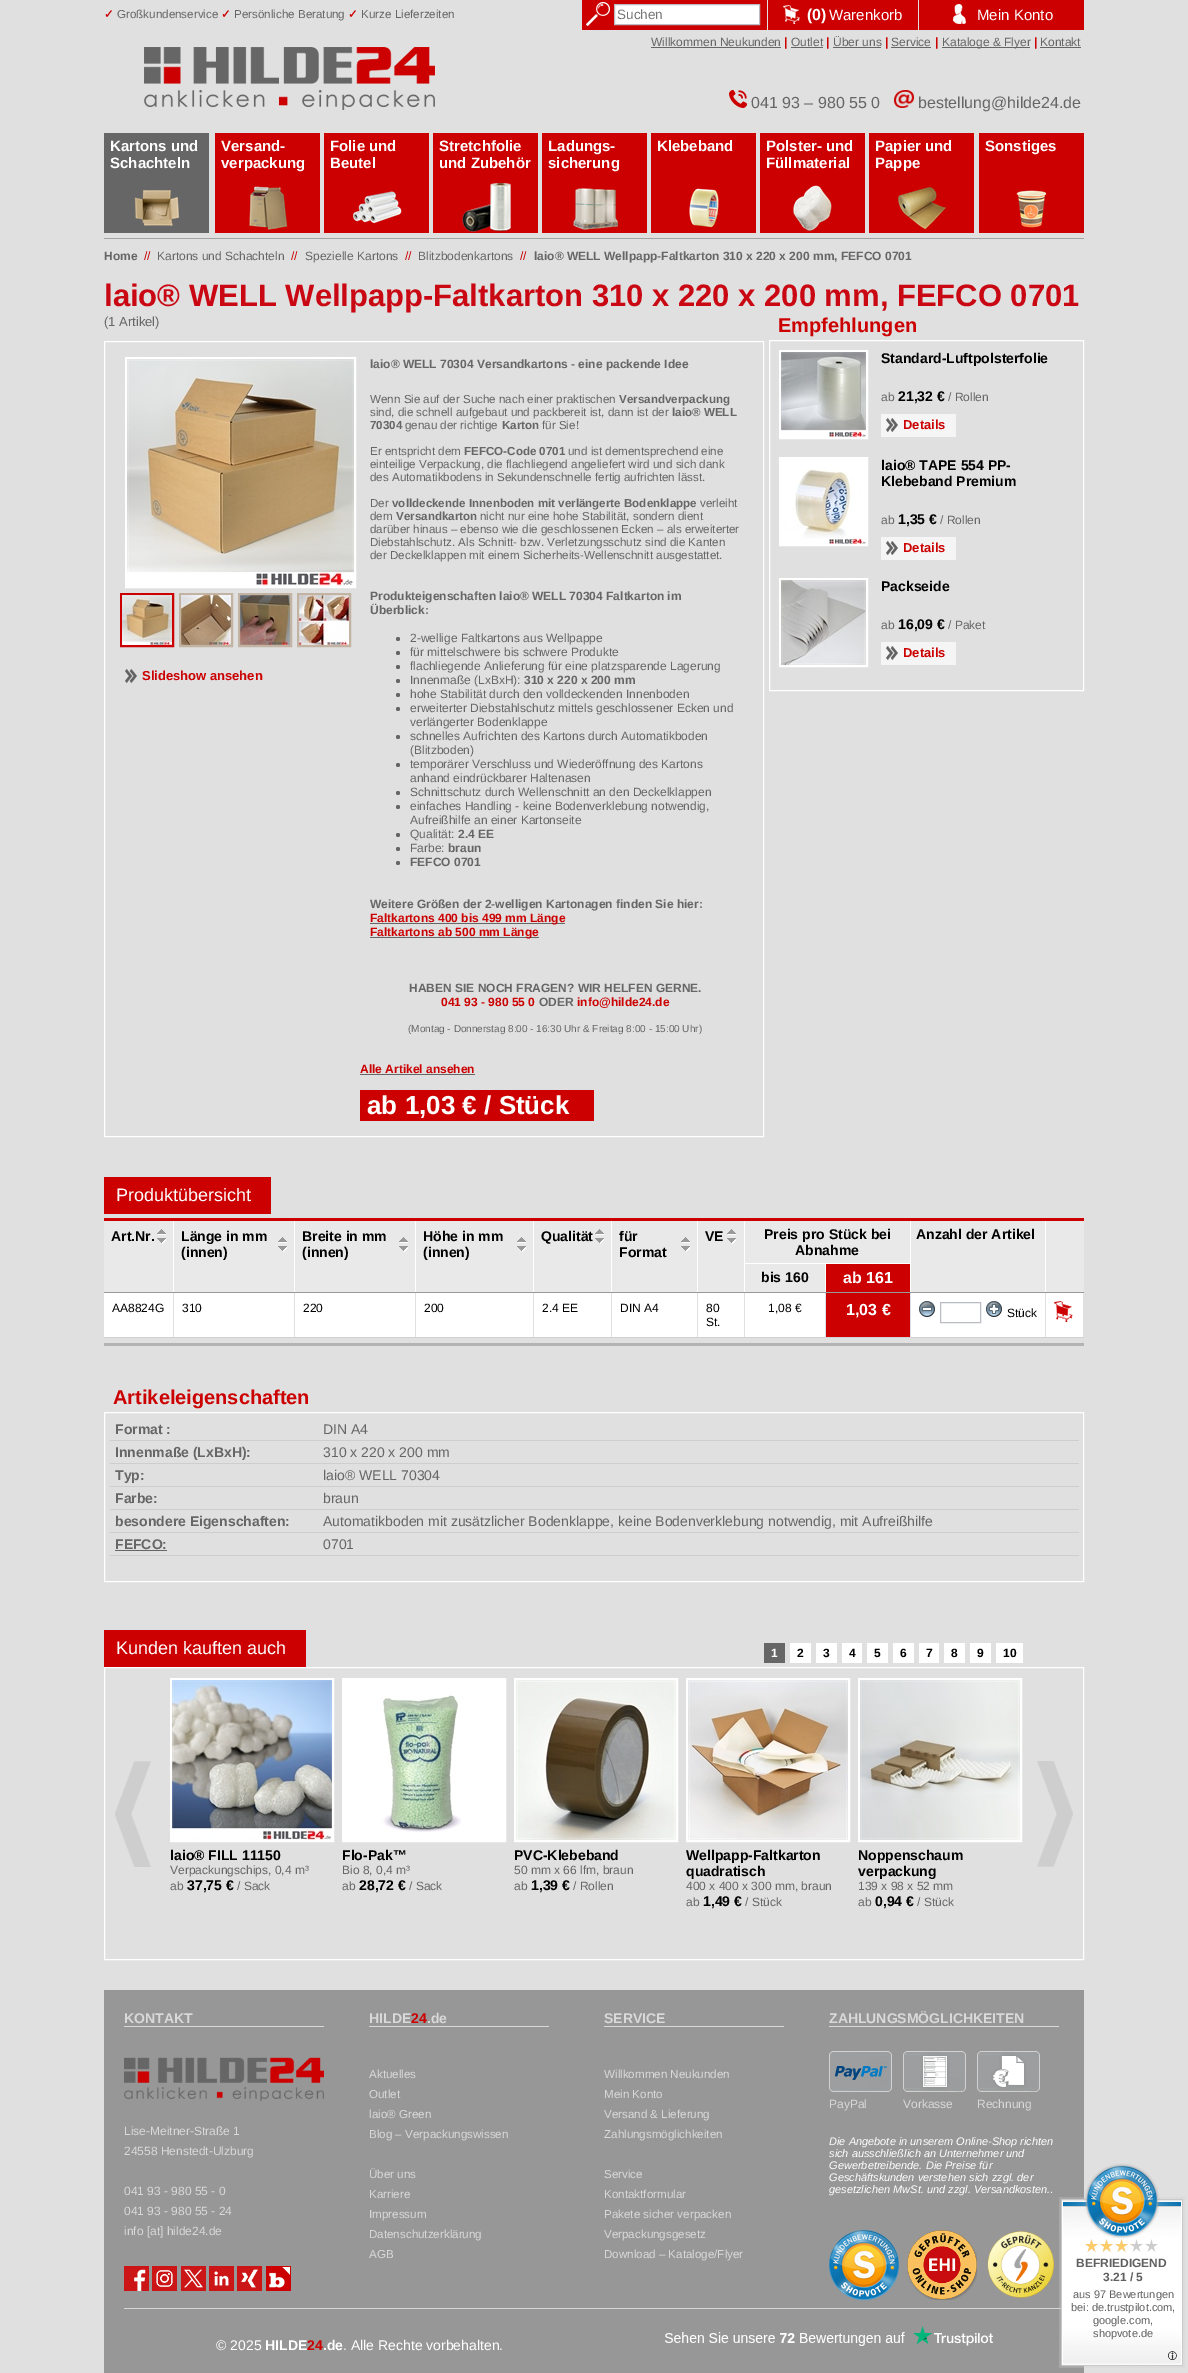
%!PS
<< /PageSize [1188 2373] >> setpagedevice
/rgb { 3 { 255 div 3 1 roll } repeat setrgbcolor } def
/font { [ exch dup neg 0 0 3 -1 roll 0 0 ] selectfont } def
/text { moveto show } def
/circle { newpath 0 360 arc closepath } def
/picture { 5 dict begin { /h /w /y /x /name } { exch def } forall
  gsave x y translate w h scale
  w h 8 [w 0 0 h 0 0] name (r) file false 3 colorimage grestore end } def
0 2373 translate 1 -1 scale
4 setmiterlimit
224 224 224 rgb
0 0 1188 2373 rectfill
204 0 0 rgb
582 0 185 30 rectfill
(img_01.rgb) 586 2 24 24 picture
255 255 255 rgb
614.5 4.5 moveto 145 0 rlineto 0 20 rlineto -145 0 rlineto closepath gsave fill grestore
187 189 196 rgb
stroke
204 0 0 rgb
768 0 150 30 rectfill
(img_02.rgb) 783 5 17 19 picture
919 0 165 30 rectfill
(img_03.rgb) 953 4 13 20 picture
(img_04.rgb) 144 47 291 63 picture
102 102 102 rgb
651 47 130 1 rectfill
791 47 32 1 rectfill
833 47 48 1 rectfill
891 47 40 1 rectfill
942 47 88 1 rectfill
1040 47 41 1 rectfill
(img_05.rgb) 729 90 18 18 picture
(img_06.rgb) 894 90 20 18 picture
163 163 163 rgb
104 238 980 1 rectfill
102 102 102 rgb
104 133 105 100 rectfill
(img_07.rgb) 134 190 46 36 picture
204 0 0 rgb
215 133 105 100 rectfill
(img_08.rgb) 249 186 39 44 picture
324 133 105 100 rectfill
(img_09.rgb) 353 191 49 33 picture
433 133 105 100 rectfill
(img_10.rgb) 462 183 49 49 picture
542 133 105 100 rectfill
(img_11.rgb) 573 188 45 42 picture
651 133 105 100 rectfill
(img_12.rgb) 689 188 30 40 picture
760 133 105 100 rectfill
(img_13.rgb) 793 185 39 46 picture
869 133 105 100 rectfill
(img_14.rgb) 898 187 48 42 picture
979 133 105 100 rectfill
(img_15.rgb) 1016 190 31 38 picture
255 255 255 rgb
104.5 341.5 659 795 rectstroke
2 setlinewidth
126 358 229 229 rectstroke
(img_16.rgb) 127 359 227 227 picture
204 0 0 rgb
121 594 52 52 rectstroke
(img_17.rgb) 122 595 50 50 picture
195 179 163 rgb
180 594 52 52 rectstroke
(img_18.rgb) 181 595 50 50 picture
239 594 52 52 rectstroke
(img_19.rgb) 240 595 50 50 picture
298 594 52 52 rectstroke
(img_20.rgb) 299 595 50 50 picture
(img_21.rgb) 125 669 12 14 picture
102 102 102 rgb
398 639 2 circle fill
398 653 2 circle fill
398 667 2 circle fill
398 681 2 circle fill
398 695 2 circle fill
398 709 2 circle fill
398 737 2 circle fill
398 765 2 circle fill
398 793 2 circle fill
398 807 2 circle fill
398 835 2 circle fill
398 849 2 circle fill
398 863 2 circle fill
370 923 195 1 rectfill
370 937 169 1 rectfill
360 1074 115 1 rectfill
204 0 0 rgb
360 1090 234 31 rectfill
255 255 255 rgb
1 setlinewidth
769.5 340.5 314 350 rectstroke
2 setlinewidth
780 351 87 87 rectstroke
(img_22.rgb) 781 352 85 85 picture
245 245 245 rgb
881 414 75 23 rectfill
(img_23.rgb) 886 418 12 14 picture
255 255 255 rgb
780 458 87 87 rectstroke
(img_24.rgb) 781 459 85 85 picture
245 245 245 rgb
881 537 75 23 rectfill
(img_23.rgb) 886 541 12 14 picture
255 255 255 rgb
780 579 87 87 rectstroke
(img_25.rgb) 781 580 85 85 picture
245 245 245 rgb
881 642 75 23 rectfill
(img_23.rgb) 886 646 12 14 picture
204 0 0 rgb
104 1177 167 37 rectfill
104 1218 980 3 rectfill
179 179 179 rgb
104 1343 980 3 rectfill
233 233 233 rgb
104 1221 69 71 rectfill
255 255 255 rgb
104 1293 979 44 rectfill
209 209 209 rgb
1045 1337 39 1 rectfill
224 224 224 rgb
1045 1292 1 46 rectfill
209 209 209 rgb
910 1337 136 1 rectfill
224 224 224 rgb
910 1292 1 46 rectfill
255 255 255 rgb
910 1221 1 72 rectfill
209 209 209 rgb
825 1337 86 1 rectfill
224 224 224 rgb
825 1292 1 46 rectfill
153 153 153 rgb
825 1292 86 1 rectfill
255 255 255 rgb
825 1263 1 30 rectfill
744 1263 167 1 rectfill
209 209 209 rgb
744 1337 82 1 rectfill
224 224 224 rgb
744 1292 1 46 rectfill
153 153 153 rgb
744 1292 82 1 rectfill
255 255 255 rgb
744 1221 1 72 rectfill
209 209 209 rgb
697 1337 48 1 rectfill
224 224 224 rgb
697 1292 1 46 rectfill
153 153 153 rgb
697 1292 48 1 rectfill
255 255 255 rgb
697 1221 1 72 rectfill
209 209 209 rgb
611 1337 87 1 rectfill
224 224 224 rgb
611 1292 1 46 rectfill
153 153 153 rgb
611 1292 87 1 rectfill
255 255 255 rgb
611 1221 1 72 rectfill
209 209 209 rgb
533 1337 79 1 rectfill
224 224 224 rgb
533 1292 1 46 rectfill
153 153 153 rgb
533 1292 79 1 rectfill
255 255 255 rgb
533 1221 1 72 rectfill
209 209 209 rgb
415 1337 119 1 rectfill
224 224 224 rgb
415 1292 1 46 rectfill
153 153 153 rgb
415 1292 119 1 rectfill
255 255 255 rgb
415 1221 1 72 rectfill
209 209 209 rgb
294 1337 122 1 rectfill
224 224 224 rgb
294 1292 1 46 rectfill
153 153 153 rgb
294 1292 122 1 rectfill
255 255 255 rgb
294 1221 1 72 rectfill
209 209 209 rgb
173 1337 122 1 rectfill
224 224 224 rgb
173 1292 1 46 rectfill
153 153 153 rgb
173 1292 122 1 rectfill
255 255 255 rgb
173 1221 1 72 rectfill
153 153 153 rgb
104 1292 70 1 rectfill
(img_26.rgb) 157 1229 9 6 picture
(img_27.rgb) 157 1238 9 6 picture
233 233 233 rgb
174 1221 120 71 rectfill
(img_26.rgb) 278 1237 9 6 picture
(img_27.rgb) 278 1246 9 6 picture
295 1221 120 71 rectfill
(img_26.rgb) 399 1237 9 6 picture
(img_27.rgb) 399 1246 9 6 picture
416 1221 117 71 rectfill
(img_26.rgb) 517 1237 9 6 picture
(img_27.rgb) 517 1246 9 6 picture
534 1221 77 71 rectfill
(img_26.rgb) 595 1229 9 6 picture
(img_27.rgb) 595 1238 9 6 picture
612 1221 85 71 rectfill
(img_26.rgb) 681 1237 9 6 picture
(img_27.rgb) 681 1246 9 6 picture
698 1221 46 71 rectfill
(img_26.rgb) 727 1229 9 6 picture
(img_27.rgb) 727 1238 9 6 picture
745 1221 165 42 rectfill
911 1221 134 71 rectfill
153 153 153 rgb
1045 1292 39 1 rectfill
255 255 255 rgb
1045 1221 1 72 rectfill
153 153 153 rgb
910 1292 136 1 rectfill
233 233 233 rgb
1046 1221 38 71 rectfill
745 1264 80 28 rectfill
204 0 0 rgb
826 1264 84 28 rectfill
209 209 209 rgb
104 1337 70 1 rectfill
204 0 0 rgb
826 1293 84 44 rectfill
(img_28.rgb) 919 1301 16 16 picture
187 189 196 rgb
1 setlinewidth
940.5 1302.5 40 20 rectstroke
(img_29.rgb) 986 1301 16 16 picture
(img_30.rgb) 1054 1301 19 21 picture
255 255 255 rgb
104.5 1412.5 979 169 rectstroke
206 206 206 rgb
110 1440 969 1 rectfill
110 1463 969 1 rectfill
110 1486 969 1 rectfill
110 1509 969 1 rectfill
110 1532 969 1 rectfill
102 102 102 rgb
115 1550 52 1 rectfill
206 206 206 rgb
110 1555 969 1 rectfill
204 0 0 rgb
104 1630 202 37 rectfill
255 255 255 rgb
104.5 1667.5 979 292 rectstroke
(img_31.rgb) 115 1761 36 106 picture
102 102 102 rgb
764 1643 21 20 rectfill
255 255 255 rgb
790 1643 21 20 rectfill
816 1643 21 20 rectfill
842 1643 20 20 rectfill
867 1643 21 20 rectfill
893 1643 21 20 rectfill
919 1643 20 20 rectfill
944 1643 21 20 rectfill
970 1643 21 20 rectfill
996 1643 27 20 rectfill
2 setlinewidth
171 1679 162 162 rectstroke
(img_32.rgb) 172 1680 160 160 picture
343 1679 162 162 rectstroke
(img_33.rgb) 344 1680 160 160 picture
515 1679 162 162 rectstroke
(img_34.rgb) 516 1680 160 160 picture
687 1679 162 162 rectstroke
(img_35.rgb) 688 1680 160 160 picture
859 1679 162 162 rectstroke
(img_36.rgb) 860 1680 160 160 picture
(img_37.rgb) 1037 1761 36 106 picture
151 151 151 rgb
104 1990 980 383 rectfill
217 217 217 rgb
124 2026 200 1 rectfill
(img_38.rgb) 124 2057 200 44 picture
(img_39.rgb) 124 2266 25 25 picture
(img_40.rgb) 152 2266 25 25 picture
(img_41.rgb) 181 2266 25 25 picture
(img_42.rgb) 209 2266 25 25 picture
(img_43.rgb) 237 2266 25 25 picture
(img_44.rgb) 266 2266 25 25 picture
369 2026 180 1 rectfill
604 2026 180 1 rectfill
829 2026 230 1 rectfill
(img_45.rgb) 829 2051 63 41 picture
(img_46.rgb) 903 2051 63 41 picture
(img_47.rgb) 977 2051 63 41 picture
(img_48.rgb) 829 2230 70 70 picture
(img_49.rgb) 907 2230 70 70 picture
(img_50.rgb) 987 2231 67 67 picture
214 214 214 rgb
124 2308 942 1 rectfill
(img_51.rgb) 665 2326 328 20 picture
(img_52.rgb) 1059 2163 126 205 picture
(img_53.rgb) 1085 2239 47 13 picture
/DejaVuSans-Bold 11.6 font
204 0 0 rgb
(✓) 104 18 text
/LiberationSans-Regular 11.6 font
102 102 102 rgb
(Großkundenservice) 117 18 text
/DejaVuSans-Bold 11.6 font
204 0 0 rgb
(✓) 221 18 text
/LiberationSans-Regular 11.6 font
102 102 102 rgb
(Persönliche Beratung) 234 18 text
/DejaVuSans-Bold 11.6 font
204 0 0 rgb
(✓) 348 18 text
/LiberationSans-Regular 11.6 font
102 102 102 rgb
(Kurze Lieferzeiten) 361 18 text
/LiberationSans-Regular 13.5 font
117 117 117 rgb
(Suchen) 617 19 text
/LiberationSans-Bold 16 font
255 255 255 rgb
(\(0\)) 807 20 text
/LiberationSans-Regular 15 font
(Warenkorb) 829 20 text
(Mein Konto) 977 20 text
/LiberationSans-Regular 12 font
102 102 102 rgb
(Willkommen Neukunden) 651 46 text
/LiberationSans-Bold 12 font
204 0 0 rgb
(|) 784 46 text
/LiberationSans-Regular 12 font
102 102 102 rgb
(Outlet) 791 46 text
/LiberationSans-Bold 12 font
204 0 0 rgb
(|) 826 46 text
/LiberationSans-Regular 12 font
102 102 102 rgb
(Über uns) 833 46 text
/LiberationSans-Bold 12 font
204 0 0 rgb
(|) 885 46 text
/LiberationSans-Regular 12 font
102 102 102 rgb
(Service) 891 46 text
/LiberationSans-Bold 12 font
204 0 0 rgb
(|) 935 46 text
/LiberationSans-Regular 12 font
102 102 102 rgb
(Kataloge & Flyer) 942 46 text
/LiberationSans-Bold 12 font
204 0 0 rgb
(|) 1034 46 text
/LiberationSans-Regular 12 font
102 102 102 rgb
(Kontakt) 1040 46 text
/LiberationSans-Regular 16 font
(041 93 – 980 55 0) 751 108 text
(bestellung@hilde24.de) 918 108 text
/LiberationSans-Bold 15 font
255 255 255 rgb
(Kartons und) 110 151 text
(Schachteln) 110 168 text
(Versand-) 221 151 text
(verpackung) 221 168 text
(Folie und) 330 151 text
(Beutel) 330 168 text
(Stretchfolie) 439 151 text
(und Zubehör) 439 168 text
(Ladungs-) 548 151 text
(sicherung) 548 168 text
(Klebeband) 657 151 text
(Polster- und) 766 151 text
(Füllmaterial) 766 168 text
(Papier und) 875 151 text
(Pappe) 875 168 text
(Sonstiges) 985 151 text
/LiberationSans-Bold 12 font
102 102 102 rgb
(Home) 104 260 text
/LiberationSans-Regular 12 font
204 0 0 rgb
(//) 144 260 text
102 102 102 rgb
(Kartons und Schachteln) 157 260 text
204 0 0 rgb
(//) 291 260 text
102 102 102 rgb
(Spezielle Kartons) 305 260 text
204 0 0 rgb
(//) 405 260 text
102 102 102 rgb
(Blitzbodenkartons) 418 260 text
204 0 0 rgb
(//) 520 260 text
/LiberationSans-Bold 12 font
102 102 102 rgb
(laio® WELL Wellpapp-Faltkarton 310 x 220 x 200 mm, FEFCO 0701) 534 260 text
/LiberationSans-Bold 31 font
202 8 19 rgb
(laio® WELL Wellpapp-Faltkarton 310 x 220 x 200 mm, FEFCO 0701) 104 306 text
/LiberationSans-Regular 13 font
102 102 102 rgb
(\(1 Artikel\)) 104 326 text
/LiberationSans-Bold 13 font
204 0 0 rgb
(Slideshow ansehen) 142 680 text
/LiberationSans-Bold 12 font
102 102 102 rgb
(laio® WELL 70304 Versandkartons - eine packende Idee) 370 368 text
/LiberationSans-Regular 11.6 font
(Wenn Sie auf der Suche nach einer praktischen) 370 403 text
/LiberationSans-Bold 11.6 font
(Versandverpackung) 619 403 text
/LiberationSans-Regular 11.6 font
(sind, die schnell aufgebaut und packbereit ist, dann ist der) 370 416 text
/LiberationSans-Bold 11.6 font
(laio® WELL) 672 416 text
(70304) 370 429 text
/LiberationSans-Regular 11.6 font
(genau der richtige) 405 429 text
/LiberationSans-Bold 11.6 font
(Karton) 502 429 text
/LiberationSans-Regular 11.6 font
(für Sie!) 542 429 text
(Er entspricht dem) 370 455 text
/LiberationSans-Bold 11.6 font
(FEFCO-Code 0701) 464 455 text
/LiberationSans-Regular 11.6 font
(und ist dementsprechend eine) 568 455 text
(einteilige Verpackung, die flachliegend angeliefert wird und sich dank) 370 468 text
(des Automatikbodens in Sekundenschnelle fertig aufrichten lässt.) 370 481 text
(Der) 370 507 text
/LiberationSans-Bold 11.6 font
(volldeckende Innenboden mit verlängerte Bodenklappe) 392 507 text
/LiberationSans-Regular 11.6 font
(verleiht) 700 507 text
(dem) 370 520 text
/LiberationSans-Bold 11.6 font
(Versandkarton) 396 520 text
/LiberationSans-Regular 11.6 font
(nicht nur eine hohe Stabilität, sondern dient) 480 520 text
(darüber hinaus – ebenso wie die geschlossenen Ecken – als erweiterter) 370 533 text
(Diebstahlschutz. Als Schnitt- bzw. Verletzungsschutz sind die Kanten) 370 546 text
(der Deckelklappen mit einem Sicherheits-Wellenschnitt ausgestattet.) 370 559 text
/LiberationSans-Bold 12 font
(Produkteigenschaften laio® WELL 70304 Faltkarton im) 370 600 text
(Überblick:) 370 614 text
/LiberationSans-Regular 12 font
(2-wellige Faltkartons aus Wellpappe) 410 642 text
(für mittelschwere bis schwere Produkte) 410 656 text
(flachliegende Anlieferung für eine platzsparende Lagerung) 410 670 text
(Innenmaße \(LxBxH\):) 410 684 text
/LiberationSans-Bold 12 font
(310 x 220 x 200 mm) 524 684 text
/LiberationSans-Regular 12 font
(hohe Stabilität durch den volldeckenden Innenboden) 410 698 text
(erweiterter Diebstahlschutz mittels geschlossener Ecken und) 410 712 text
(verlängerter Bodenklappe) 410 726 text
(schnelles Aufrichten des Kartons durch Automatikboden) 410 740 text
(\(Blitzboden\)) 410 754 text
(temporärer Verschluss und Wiederöffnung des Kartons) 410 768 text
(anhand eindrückbarer Haltenasen) 410 782 text
(Schnittschutz durch Wellenschnitt an den Deckelklappen) 410 796 text
(einfaches Handling - keine Bodenverklebung notwendig,) 410 810 text
(Aufreißhilfe an einer Kartonseite) 410 824 text
(Qualität:) 410 838 text
/LiberationSans-Bold 12 font
(2.4 EE) 458 838 text
/LiberationSans-Regular 12 font
(Farbe:) 410 852 text
/LiberationSans-Bold 12 font
(braun) 448 852 text
(FEFCO 0701) 410 866 text
(Weitere Größen der 2-welligen Kartonagen finden Sie hier:) 370 908 text
204 0 0 rgb
(Faltkartons 400 bis 499 mm Länge) 370 922 text
(Faltkartons ab 500 mm Länge) 370 936 text
102 102 102 rgb
(HABEN SIE NOCH FRAGEN? WIR HELFEN GERNE.) 409 992 text
204 0 0 rgb
(041 93 - 980 55 0) 441 1006 text
102 102 102 rgb
(ODER) 539 1006 text
204 0 0 rgb
(info@hilde24.de) 577 1006 text
/LiberationSans-Regular 10 font
102 102 102 rgb
(\(Montag - Donnerstag 8:00 - 16:30 Uhr & Freitag 8:00 - 15:00 Uhr\)) 408 1032 text
/LiberationSans-Bold 12 font
204 0 0 rgb
(Alle Artikel ansehen) 360 1073 text
/LiberationSans-Bold 26 font
255 255 255 rgb
(ab 1,03 € / Stück) 367 1114 text
/LiberationSans-Bold 20 font
204 0 0 rgb
(Empfehlungen) 778 332 text
/LiberationSans-Bold 14 font
0 0 0 rgb
(Standard-Luftpolsterfolie) 881 363 text
/LiberationSans-Regular 12 font
102 102 102 rgb
(ab) 881 401 text
/LiberationSans-Bold 14 font
0 0 0 rgb
(21,32 €) 898 401 text
/LiberationSans-Regular 12 font
102 102 102 rgb
(/ Rollen) 948 401 text
/LiberationSans-Bold 13 font
204 0 0 rgb
(Details) 903 429 text
/LiberationSans-Bold 14 font
0 0 0 rgb
(laio® TAPE 554 PP-) 881 470 text
(Klebeband Premium) 881 486 text
/LiberationSans-Regular 12 font
102 102 102 rgb
(ab) 881 524 text
/LiberationSans-Bold 14 font
0 0 0 rgb
(1,35 €) 898 524 text
/LiberationSans-Regular 12 font
102 102 102 rgb
(/ Rollen) 940 524 text
/LiberationSans-Bold 13 font
204 0 0 rgb
(Details) 903 552 text
/LiberationSans-Bold 14 font
0 0 0 rgb
(Packseide) 881 591 text
/LiberationSans-Regular 12 font
102 102 102 rgb
(ab) 881 629 text
/LiberationSans-Bold 14 font
0 0 0 rgb
(16,09 €) 898 629 text
/LiberationSans-Regular 12 font
102 102 102 rgb
(/ Paket) 948 629 text
/LiberationSans-Bold 13 font
204 0 0 rgb
(Details) 903 657 text
/LiberationSans-Regular 18 font
255 255 255 rgb
(Produktübersicht) 116 1201 text
/LiberationSans-Bold 14 font
0 0 0 rgb
(Art.Nr.) 111 1241 text
(Länge in mm) 181 1241 text
(\(innen\)) 181 1257 text
(Breite in mm) 302 1241 text
(\(innen\)) 302 1257 text
(Höhe in mm) 423 1241 text
(\(innen\)) 423 1257 text
(Qualität) 541 1241 text
(für) 619 1241 text
(Format) 619 1257 text
(VE) 705 1241 text
(Preis pro Stück bei) 764 1239 text
(Abnahme) 795 1255 text
(Anzahl der Artikel) 916 1239 text
(bis 160) 761 1282 text
/LiberationSans-Bold 16 font
255 255 255 rgb
(ab 161) 843 1283 text
/LiberationSans-Regular 12 font
0 0 0 rgb
(AA8824G) 112 1312 text
(310) 182 1312 text
(220) 303 1312 text
(200) 424 1312 text
(2.4 EE) 542 1312 text
(DIN A4) 620 1312 text
(80) 706 1312 text
(St.) 706 1326 text
(1,08 €) 768 1312 text
/LiberationSans-Bold 16 font
255 255 255 rgb
(1,03 €) 846 1315 text
/LiberationSans-Regular 12 font
0 0 0 rgb
(Stück) 1007 1317 text
/LiberationSans-Bold 20 font
204 0 0 rgb
(Artikeleigenschaften) 113 1404 text
/LiberationSans-Bold 14 font
102 102 102 rgb
(Format :) 115 1434 text
/LiberationSans-Regular 14 font
(DIN A4) 323 1434 text
/LiberationSans-Bold 14 font
(Innenmaße \(LxBxH\):) 115 1457 text
/LiberationSans-Regular 14 font
(310 x 220 x 200 mm) 323 1457 text
/LiberationSans-Bold 14 font
(Typ:) 115 1480 text
/LiberationSans-Regular 14 font
(laio® WELL 70304) 323 1480 text
/LiberationSans-Bold 14 font
(Farbe:) 115 1503 text
/LiberationSans-Regular 14 font
(braun) 323 1503 text
/LiberationSans-Bold 14 font
(besondere Eigenschaften:) 115 1526 text
/LiberationSans-Regular 14 font
(Automatikboden mit zusätzlicher Bodenklappe, keine Bodenverklebung notwendig, mit Aufreißhilfe) 323 1526 text
/LiberationSans-Bold 14 font
(FEFCO:) 115 1549 text
/LiberationSans-Regular 14 font
(0701) 323 1549 text
/LiberationSans-Regular 18 font
255 255 255 rgb
(Kunden kauften auch) 116 1654 text
/LiberationSans-Bold 12 font
(1) 771 1657 text
0 0 0 rgb
(2) 797 1657 text
(3) 823 1657 text
(4) 849 1657 text
(5) 874 1657 text
(6) 900 1657 text
(7) 926 1657 text
(8) 951 1657 text
(9) 977 1657 text
(10) 1003 1657 text
/LiberationSans-Bold 14 font
(laio® FILL 11150) 170 1860 text
/LiberationSans-Regular 12 font
102 102 102 rgb
(Verpackungschips, 0,4 m³) 170 1874 text
(ab) 170 1890 text
/LiberationSans-Bold 14 font
0 0 0 rgb
(37,75 €) 187 1890 text
/LiberationSans-Regular 12 font
102 102 102 rgb
(/ Sack) 237 1890 text
/LiberationSans-Bold 14 font
0 0 0 rgb
(Flo-Pak™) 342 1860 text
/LiberationSans-Regular 12 font
102 102 102 rgb
(Bio 8, 0,4 m³) 342 1874 text
(ab) 342 1890 text
/LiberationSans-Bold 14 font
0 0 0 rgb
(28,72 €) 359 1890 text
/LiberationSans-Regular 12 font
102 102 102 rgb
(/ Sack) 409 1890 text
/LiberationSans-Bold 14 font
0 0 0 rgb
(PVC-Klebeband) 514 1860 text
/LiberationSans-Regular 12 font
102 102 102 rgb
(50 mm x 66 lfm, braun) 514 1874 text
(ab) 514 1890 text
/LiberationSans-Bold 14 font
0 0 0 rgb
(1,39 €) 531 1890 text
/LiberationSans-Regular 12 font
102 102 102 rgb
(/ Rollen) 573 1890 text
/LiberationSans-Bold 14 font
0 0 0 rgb
(Wellpapp-Faltkarton) 686 1860 text
(quadratisch) 686 1876 text
/LiberationSans-Regular 12 font
102 102 102 rgb
(400 x 400 x 300 mm, braun) 686 1890 text
(ab) 686 1906 text
/LiberationSans-Bold 14 font
0 0 0 rgb
(1,49 €) 703 1906 text
/LiberationSans-Regular 12 font
102 102 102 rgb
(/ Stück) 745 1906 text
/LiberationSans-Bold 14 font
0 0 0 rgb
(Noppenschaum) 858 1860 text
(verpackung) 858 1876 text
/LiberationSans-Regular 12 font
102 102 102 rgb
(139 x 98 x 52 mm) 858 1890 text
(ab) 858 1906 text
/LiberationSans-Bold 14 font
0 0 0 rgb
(0,94 €) 875 1906 text
/LiberationSans-Regular 12 font
102 102 102 rgb
(/ Stück) 917 1906 text
/LiberationSans-Bold 14 font
217 217 217 rgb
(KONTAKT) 124 2023 text
/LiberationSans-Regular 12 font
(Lise-Meitner-Straße 1) 124 2135 text
(24558 Henstedt-Ulzburg) 124 2155 text
(041 93 - 980 55 - 0) 124 2195 text
(041 93 - 980 55 - 24) 124 2215 text
(info [at] hilde24.de) 124 2235 text
/LiberationSans-Bold 14 font
(HILDE) 369 2023 text
204 0 0 rgb
(24) 411 2023 text
217 217 217 rgb
(.de) 427 2023 text
/LiberationSans-Regular 11.6 font
(Aktuelles) 369 2078 text
(Outlet) 369 2098 text
(laio® Green) 369 2118 text
(Blog – Verpackungswissen) 369 2138 text
(Über uns) 369 2178 text
(Karriere) 369 2198 text
(Impressum) 369 2218 text
(Datenschutzerklärung) 369 2238 text
(AGB) 369 2258 text
/LiberationSans-Bold 14 font
(SERVICE) 604 2023 text
/LiberationSans-Regular 11.6 font
(Willkommen Neukunden) 604 2078 text
(Mein Konto) 604 2098 text
(Versand & Lieferung) 604 2118 text
(Zahlungsmöglichkeiten) 604 2138 text
(Service) 604 2178 text
(Kontaktformular) 604 2198 text
(Pakete sicher verpacken) 604 2218 text
(Verpackungsgesetz) 604 2238 text
(Download – Kataloge/Flyer) 604 2258 text
/LiberationSans-Bold 14 font
(ZAHLUNGSMÖGLICHKEITEN) 829 2023 text
/LiberationSans-Regular 12 font
(PayPal) 829 2108 text
(Vorkasse) 903 2108 text
(Rechnung) 977 2108 text
/LiberationSans-Italic 11 font
255 255 255 rgb
(Die Angebote in unserem Online-Shop richten) 829 2145 text
(sich ausschließlich an Unternehmer und) 829 2157 text
(Gewerbetreibende. Die Preise für) 829 2169 text
(Geschäftskunden verstehen sich zzgl. der) 829 2181 text
(gesetzlichen MwSt. und zzgl. Versandkosten.) 829 2193 text
/LiberationSans-Regular 11 font
(.) 1050 2193 text
/LiberationSans-Regular 14 font
(© 2025) 216 2350 text
/LiberationSans-Bold 14 font
(HILDE) 265 2350 text
204 0 0 rgb
(24) 307 2350 text
255 255 255 rgb
(.de) 323 2350 text
/LiberationSans-Regular 14 font
(. Alle Rechte vorbehalten.) 343 2350 text
/LiberationSans-Bold 12 font
96 96 96 rgb
(BEFRIEDIGEND) 1076 2267 text
(3.21 / 5) 1103 2281 text
/LiberationSans-Regular 11 font
(aus 97 Bewertungen) 1073 2298 text
(bei: de.trustpilot.com,) 1071 2311 text
(google.com,) 1093 2324 text
(shopvote.de) 1093 2337 text
showpage
